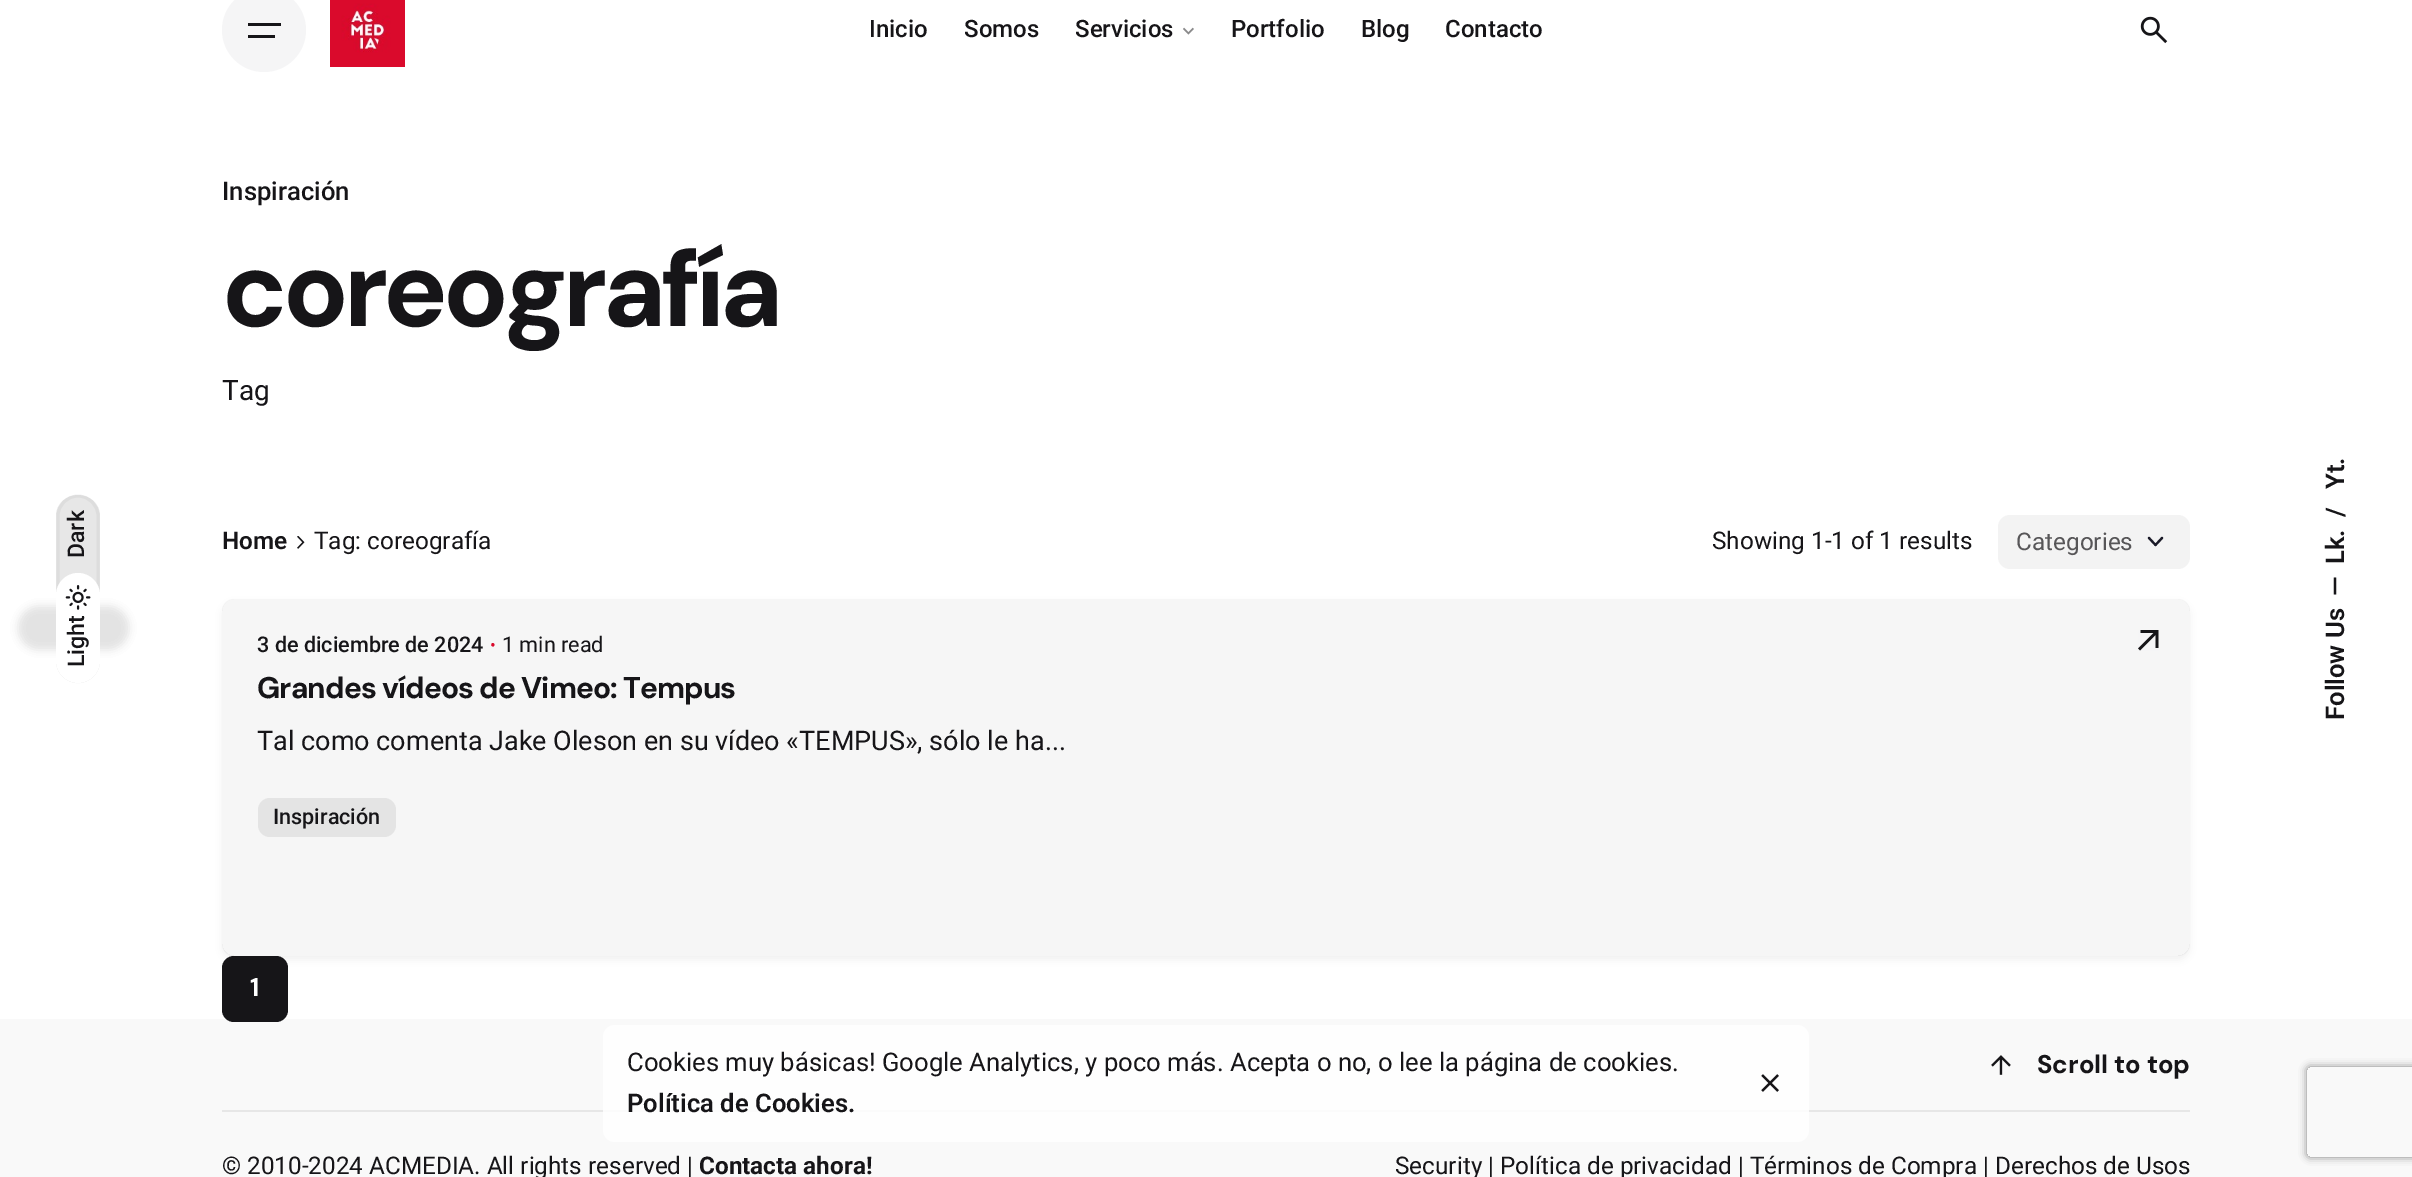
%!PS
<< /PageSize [2412 1177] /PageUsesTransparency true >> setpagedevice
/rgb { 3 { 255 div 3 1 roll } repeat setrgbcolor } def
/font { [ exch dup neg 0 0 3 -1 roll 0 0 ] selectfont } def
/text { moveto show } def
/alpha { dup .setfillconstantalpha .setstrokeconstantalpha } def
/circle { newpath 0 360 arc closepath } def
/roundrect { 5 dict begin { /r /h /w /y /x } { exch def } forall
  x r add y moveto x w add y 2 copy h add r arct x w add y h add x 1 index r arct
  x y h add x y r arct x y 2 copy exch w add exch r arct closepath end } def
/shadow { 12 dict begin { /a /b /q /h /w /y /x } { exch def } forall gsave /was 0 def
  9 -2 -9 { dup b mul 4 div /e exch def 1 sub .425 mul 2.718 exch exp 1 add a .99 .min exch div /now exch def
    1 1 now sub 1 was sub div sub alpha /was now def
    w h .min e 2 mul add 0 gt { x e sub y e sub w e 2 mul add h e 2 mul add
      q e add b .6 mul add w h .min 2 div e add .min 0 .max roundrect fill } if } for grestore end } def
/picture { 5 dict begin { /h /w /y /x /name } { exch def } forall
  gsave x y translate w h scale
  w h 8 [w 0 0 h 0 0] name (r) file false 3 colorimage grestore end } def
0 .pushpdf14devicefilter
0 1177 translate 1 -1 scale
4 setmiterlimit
255 255 255 rgb
0 0 2412 1177 rectfill
245 245 246 rgb
264 30 42 circle fill
22 21 24 rgb
248 23 33 3 rectfill
248 35 27 3 rectfill
(img_01.rgb) 330 0 75 67 picture
(img_02.rgb) 1183 27 11 8 picture
(img_03.rgb) 2140 16 28 28 picture
231 231 231 rgb
56 661 moveto 0 -145 rlineto 0 -12 10 -21 22 -21 rcurveto 12 0 22 9 22 21 rcurveto 0 145 rlineto 0 12 -10 22 -22 22 rcurveto -12 0 -22 -10 -22 -22 rcurveto closepath fill
0.1 alpha
136 136 137 rgb
3 setlinewidth
58 661.5 moveto 0 -145.5 rlineto 0 -11 9 -20 20 -20 rcurveto 11 0 20 9 20 20 rcurveto 0 145.5 rlineto 0 11 -9 20 -20 20 rcurveto -11 0 -20 -9 -20 -20 rcurveto closepath stroke
1 alpha
17 16 19 rgb
18 606 111 44 22 4.5 0.05 shadow
18 606 111 44 22 4.5 0.05 shadow
255 255 255 rgb
56 661 moveto 0 -66 rlineto 0 -12 10 -22 22 -22 rcurveto 12 0 22 10 22 22 rcurveto 0 66 rlineto 0 12 -10 22 -22 22 rcurveto -12 0 -22 -10 -22 -22 rcurveto closepath fill
(img_04.rgb) 65 585 26 25 picture
(img_05.rgb) 297 536 8 13 picture
243 243 243 rgb
1998 515 192 54 12 roundrect fill
27 27 40 rgb
2.2 setlinewidth
1 setlinecap
1 setlinejoin
2149 538 moveto 6.5 7 rlineto 6.5 -7 rlineto stroke
249 249 249 rgb
0 1019 2412 158 rectfill
22 21 24 rgb
222 956 66 66 12 roundrect fill
gsave
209 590 moveto 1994 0 rlineto 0 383 rlineto -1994 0 rlineto closepath 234 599 moveto 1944 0 rlineto 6.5 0 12 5.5 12 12 rcurveto 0 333 rlineto 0 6.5 -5.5 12 -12 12 rcurveto -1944 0 rlineto -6.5 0 -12 -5.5 -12 -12 rcurveto 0 -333 rlineto 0 -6.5 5.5 -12 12 -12 rcurveto closepath eoclip newpath
0 0 0 rgb
222 603 1968 357 12 4 0.06 shadow
grestore
0.08 alpha
136 136 137 rgb
222 599 1968 357 12 roundrect fill
1 alpha
228 228 228 rgb
258 798 138 39 12 roundrect fill
(img_06.rgb) 2138 630 21 21 picture
(img_07.rgb) 1991 1055 20 20 picture
231 231 231 rgb
222 1110 1968 2 rectfill
0.85 alpha
255 255 255 rgb
603 1025 1206 117 12 roundrect fill
1 alpha
(img_08.rgb) 1761 1074 18 18 picture
gsave
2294 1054 moveto 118 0 rlineto 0 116 rlineto -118 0 rlineto closepath 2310 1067 moveto 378 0 rlineto 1.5 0 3 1.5 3 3 rcurveto 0 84 rlineto 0 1.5 -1.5 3 -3 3 rcurveto -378 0 rlineto -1.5 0 -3 -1.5 -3 -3 rcurveto 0 -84 rlineto 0 -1.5 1.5 -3 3 -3 rcurveto closepath eoclip newpath
128 128 128 rgb
2307 1067 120 90 3 4 1 shadow
grestore
/Roboto-Medium 24 font
22 21 24 rgb
(Inicio) 869 37 text
(Somos) 964 37 text
(Servicios) 1075 37 text
(Portfolio) 1231 37 text
(Blog) 1361 37 text
(Contacto) 1445 37 text
/Roboto-Medium 23 font
gsave 84 558 translate -90 rotate 0 0 moveto (Dark) show grestore
gsave 84 667 translate -90 rotate 0 0 moveto (Light) show grestore
/Roboto-Medium 25.65 font
(Inspiración) 222 200 text
/DMSans-Bold 108 font
222 326 moveto -4.9 0 (coreografía) ashow
/Roboto-Regular 28 font
(Tag) 222 400 text
/Roboto-SemiBold 24.3 font
(Home) 222 549 text
/Roboto-Regular 24.3 font
(Tag: coreografía) 314 549 text
(Showing 1-1 of 1 results) 1712 549 text
87 86 88 rgb
(Categories) 2016 550 text
/Roboto-Medium 21.6 font
22 21 24 rgb
(3 de diciembre de 2024) 257 652 text
/Roboto-Regular 17 font
217 10 44 rgb
(•) 490 651 text
/Roboto-Regular 21.6 font
22 21 24 rgb
(1 min read) 502 652 text
/DMSans-Bold 29.9 font
257 698 moveto -0.9 0 (Grandes vídeos de Vimeo: Tempus) ashow
/Roboto-Regular 27 font
(Tal como comenta Jake Oleson en su vídeo «TEMPUS», sólo le ha...) 257 750 text
/Roboto-Medium 21.6 font
(Inspiración) 273 824 text
/DMSans-Bold 25.65 font
255 255 255 rgb
(1) 250 996 text
/Roboto-SemiBold 25.65 font
22 21 24 rgb
gsave 2344 489 translate -90 rotate 0 0 moveto (Yt.) show grestore
gsave 2344 517 translate -90 rotate 0 0 moveto (/) show grestore
gsave 2344 564 translate -90 rotate 0 0 moveto (Lk.) show grestore
gsave 2344 596 translate -90 rotate 0 0 moveto (—) show grestore
gsave 2344 720 translate -90 rotate 0 0 moveto (Follow Us) show grestore
/DMSans-Bold 25.65 font
(Scroll to top) 2037 1073 text
/Roboto-Regular 24.3 font
(© 2010-2024 ACMEDIA. All rights reserved |) 222 1174 text
/Roboto-Bold 24.3 font
(Contacta ahora!) 699 1174 text
/Roboto-Regular 24.3 font
(Security | Política de privacidad | Términos de Compra | Derechos de Usos) 1395 1174 text
/Roboto-Regular 25.65 font
(Cookies muy básicas! Google Analytics, y poco más. Acepta o no, o lee la página de cookies.) 627 1071 text
/Roboto-SemiBold 25.65 font
(Política de Cookies.) 627 1112 text
.poppdf14devicefilter showpage
